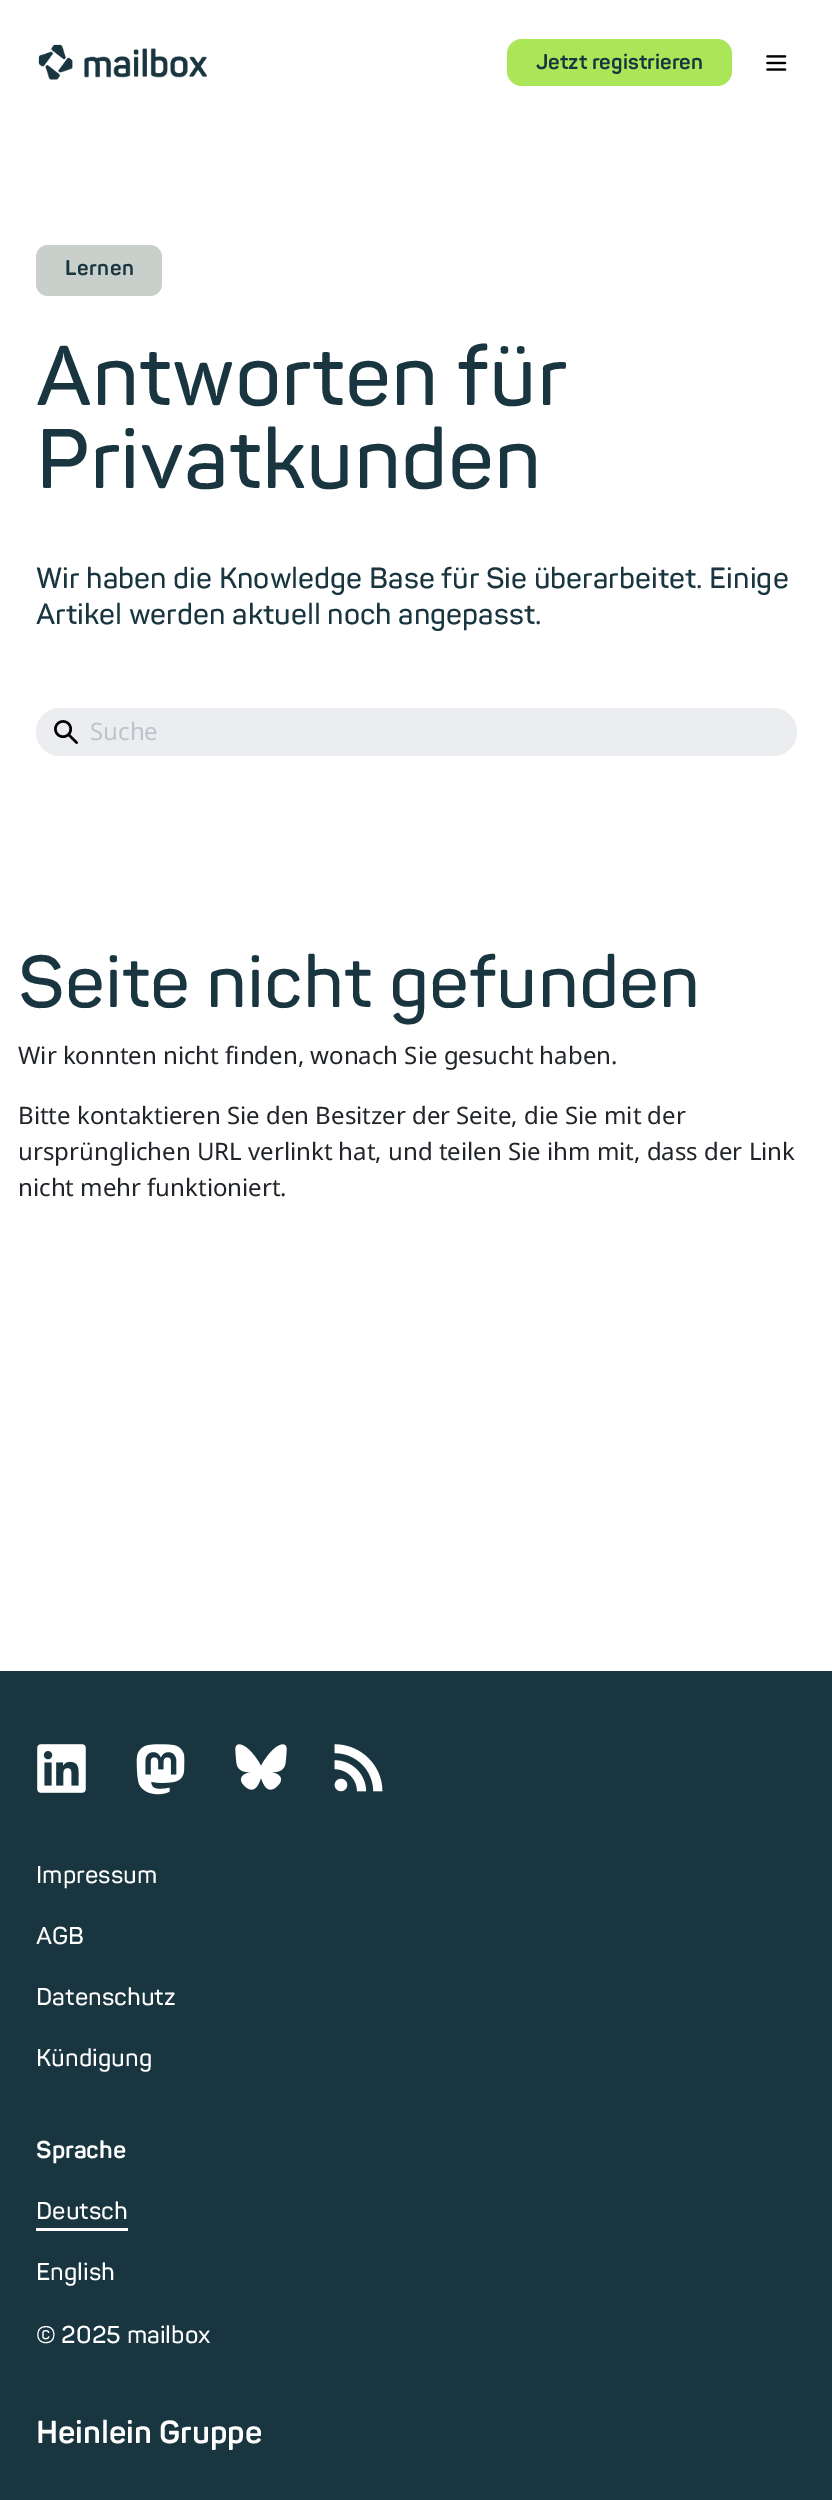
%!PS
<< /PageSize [832 2500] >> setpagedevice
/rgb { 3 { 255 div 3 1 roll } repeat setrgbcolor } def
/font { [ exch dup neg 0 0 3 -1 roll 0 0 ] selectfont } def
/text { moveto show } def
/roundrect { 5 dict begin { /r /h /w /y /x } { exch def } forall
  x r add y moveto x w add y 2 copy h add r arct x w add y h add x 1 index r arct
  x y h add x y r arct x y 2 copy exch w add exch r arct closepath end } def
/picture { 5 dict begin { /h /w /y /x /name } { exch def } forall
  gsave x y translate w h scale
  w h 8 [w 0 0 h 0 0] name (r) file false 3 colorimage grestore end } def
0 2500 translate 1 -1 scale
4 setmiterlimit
255 255 255 rgb
0 0 832 2500 rectfill
(img_01.rgb) 38 44 169 36 picture
171 230 89 rgb
507 39 225 47 15 roundrect fill
(img_02.rgb) 766 55 21 16 picture
201 207 203 rgb
36 245 126 51 12 roundrect fill
235 237 240 rgb
36 708 761 48 24 roundrect fill
(img_03.rgb) 54 720 24 24 picture
25 53 63 rgb
0 1671 832 829 rectfill
(img_04.rgb) 37 1744 49 49 picture
(img_05.rgb) 136 1744 49 51 picture
(img_06.rgb) 235 1744 52 46 picture
(img_07.rgb) 334 1744 49 48 picture
255 255 255 rgb
36 2228 92 3 rectfill
/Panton-Bold 21 font
25 53 63 rgb
(Jetzt registrieren) 536 69 text
65 275 moveto 0.5 0 (Lernen) ashow
/Panton-SemiBold 83.25 font
(Antworten für) 36 405 text
(Privatkunden) 36 488 text
/Panton-SemiBold 28.8 font
(Wir haben die Knowledge Base für Sie überarbeitet. Einige) 36 588 text
(Artikel werden aktuell noch angepasst.) 36 624 text
/NotoSans-Regular 24 font
190 195 201 rgb
(Suche) 90 740 text
/Panton-SemiBold 72 font
25 53 63 rgb
(Seite nicht gefunden) 18 1007 text
/NotoSans-Regular 24 font
33 37 41 rgb
(Wir konnten nicht finden, wonach Sie gesucht haben.) 18 1064 text
(Bitte kontaktieren Sie den Besitzer der Seite, die Sie mit der) 18 1124 text
(ursprünglichen URL verlinkt hat, und teilen Sie ihm mit, dass der Link) 18 1160 text
(nicht mehr funktioniert.) 18 1196 text
/Panton-SemiBold 24 font
255 255 255 rgb
(Impressum) 36 1883 text
(AGB) 36 1944 text
(Datenschutz) 36 2005 text
(Kündigung) 36 2066 text
/Panton-Bold 24 font
(Sprache) 36 2158 text
/Panton-SemiBold 24 font
(Deutsch) 36 2219 text
(English) 36 2280 text
(© 2025 mailbox) 36 2343 text
/Panton-Bold 31.5 font
(Heinlein Gruppe) 36 2443 text
showpage
